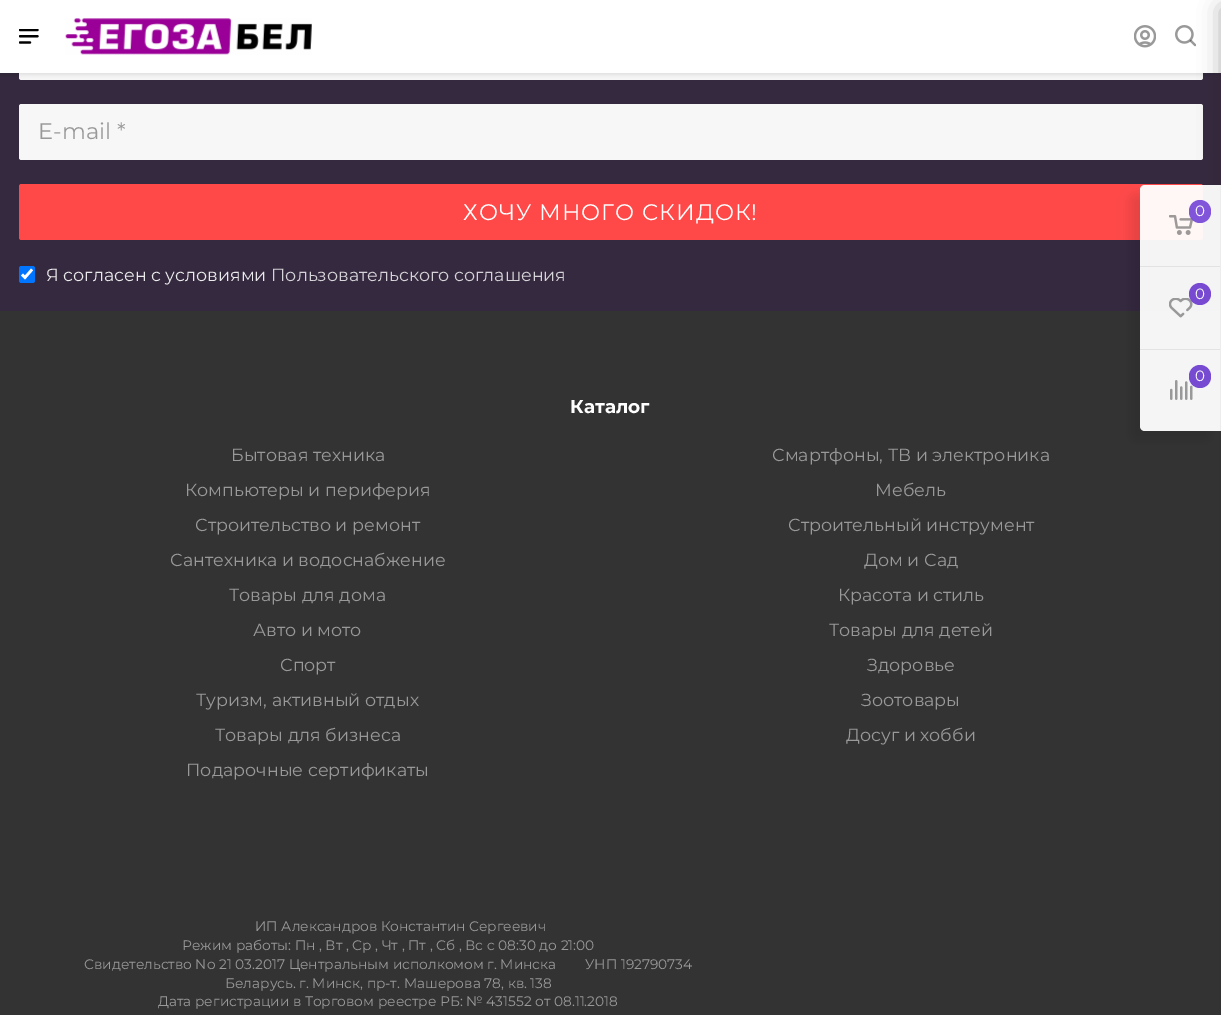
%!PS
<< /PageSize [1221 1015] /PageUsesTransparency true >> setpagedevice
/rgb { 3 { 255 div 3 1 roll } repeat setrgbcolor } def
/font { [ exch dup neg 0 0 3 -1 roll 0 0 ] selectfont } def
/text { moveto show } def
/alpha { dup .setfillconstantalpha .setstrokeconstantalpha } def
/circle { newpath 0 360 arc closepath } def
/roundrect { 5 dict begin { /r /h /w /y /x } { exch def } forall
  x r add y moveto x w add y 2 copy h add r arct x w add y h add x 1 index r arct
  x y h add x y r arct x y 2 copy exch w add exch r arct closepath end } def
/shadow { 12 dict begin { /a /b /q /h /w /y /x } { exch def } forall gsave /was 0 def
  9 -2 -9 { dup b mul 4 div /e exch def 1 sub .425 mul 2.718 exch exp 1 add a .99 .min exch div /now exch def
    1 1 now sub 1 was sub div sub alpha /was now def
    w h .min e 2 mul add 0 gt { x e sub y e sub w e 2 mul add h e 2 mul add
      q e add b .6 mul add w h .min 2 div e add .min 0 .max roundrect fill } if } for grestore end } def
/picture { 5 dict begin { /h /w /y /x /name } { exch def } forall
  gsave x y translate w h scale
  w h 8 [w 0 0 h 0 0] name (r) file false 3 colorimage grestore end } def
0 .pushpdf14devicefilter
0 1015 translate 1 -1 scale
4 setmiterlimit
51 51 51 rgb
0 0 1221 1015 rectfill
52 41 62 rgb
0 73 1221 238 rectfill
247 247 247 rgb
19 24 1184 56 2.5 roundrect fill
19 104 1184 56 2.5 roundrect fill
255 73 73 rgb
19 184 1184 56 2.5 roundrect fill
0 117 255 rgb
19 266 16 17 2.5 roundrect fill
255 255 255 rgb
2.6 setlinewidth
22 274.5 moveto 3 3 rlineto 7 -8 rlineto stroke
0 0 0 rgb
0 1 1221 73 0 3 0.14 shadow
255 255 255 rgb
0 0 1221 73 rectfill
(img_01.rgb) 19 29 20 15 picture
(img_02.rgb) 65 18 247 37 picture
(img_03.rgb) 1134 25 22 23 picture
(img_04.rgb) 1175 25 21 22 picture
44 44 44 rgb
1221 8 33 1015 0 11 0.38 shadow
gsave
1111 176 moveto 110 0 rlineto 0 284 rlineto -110 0 rlineto closepath 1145 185 moveto 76 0 rlineto 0 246 rlineto -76 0 rlineto -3 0 -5 -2 -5 -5 rcurveto 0 -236 rlineto 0 -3 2 -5 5 -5 rcurveto closepath eoclip newpath
0 0 0 rgb
1130 195 81 246 5 6 0.1 shadow
grestore
0.95 alpha
255 255 255 rgb
1145 185 moveto 76 0 rlineto 0 246 rlineto -76 0 rlineto -3 0 -5 -2 -5 -5 rcurveto 0 -236 rlineto 0 -3 2 -5 5 -5 rcurveto closepath fill
1 alpha
236 236 236 rgb
1220 185 1 246 rectfill
227 226 227 rgb
1140 266 80 1 rectfill
(img_05.rgb) 1169 215 25 20 picture
0.95 alpha
122 76 217 rgb
1189 200 22 23 11 roundrect fill
1 alpha
227 227 227 rgb
1140 349 80 1 rectfill
(img_06.rgb) 1169 298 24 20 picture
119 74 209 rgb
1200 294 11 circle fill
(img_07.rgb) 1170 380 23 20 picture
118 75 209 rgb
1189 365 22 23 11 roundrect fill
/Montserrat-Regular 22.5 font
153 153 153 rgb
(E-mail *) 38 139 text
255 255 255 rgb
463 220 moveto 1 0 (ХОЧУ МНОГО СКИДОК!) ashow
/Montserrat-Regular 17.5 font
235 234 236 rgb
(Я согласен с условиями) 46 281 text
214 212 216 rgb
(Пользовательского соглашения) 271 281 text
/Montserrat-Regular 15 font
249 246 253 rgb
(0) 1195 216 text
245 244 245 rgb
(0) 1195 299 text
(0) 1195 381 text
/Montserrat-Bold 18.5 font
255 255 255 rgb
(Каталог) 570 413 text
/Montserrat-Regular 17.5 font
153 153 153 rgb
(Бытовая техника) 231 461 text
(Смартфоны, ТВ и электроника) 772 461 text
(Компьютеры и периферия) 185 496 text
(Мебель) 875 496 text
(Строительство и ремонт) 195 531 text
(Строительный инструмент) 788 531 text
(Сантехника и водоснабжение) 170 566 text
(Дом и Сад) 864 566 text
(Товары для дома) 229 601 text
(Красота и стиль) 838 601 text
(Авто и мото) 253 636 text
(Товары для детей) 829 636 text
(Спорт) 280 671 text
(Здоровье) 867 671 text
(Туризм, активный отдых) 196 706 text
(Зоотовары) 861 706 text
(Товары для бизнеса) 215 741 text
(Досуг и хобби) 846 741 text
(Подарочные сертификаты) 186 776 text
/Montserrat-Regular 13.75 font
(ИП Александров Константин Сергеевич) 255 931 text
(Режим работы: Пн , Вт , Ср , Чт , Пт , Сб , Вс c 08:30 до 21:00) 182 950 text
(Свидетельство No 21 03.2017 Центральным исполкомом г. Минска) 84 969 text
(УНП 192790734) 585 969 text
(Беларусь. г. Минск, пр-т. Машерова 78, кв. 138) 225 988 text
(Дата регистрации в Торговом реестре РБ: № 431552 от 08.11.2018) 158 1006 text
.poppdf14devicefilter showpage
